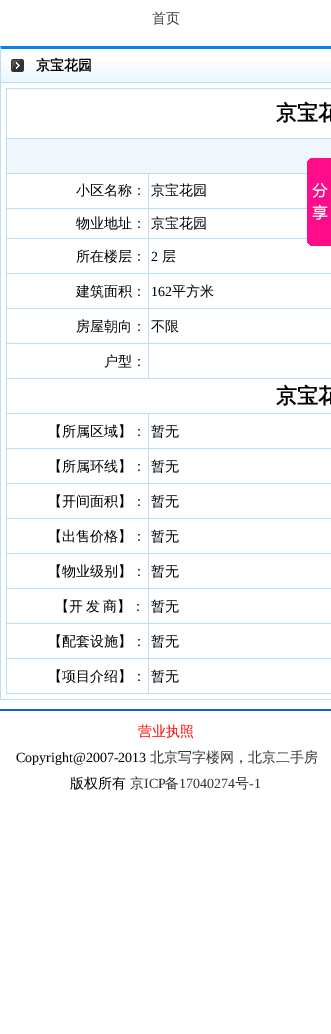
%!PS
<< /PageSize [331 1034] >> setpagedevice
/rgb { 3 { 255 div 3 1 roll } repeat setrgbcolor } def
/font { [ exch dup neg 0 0 3 -1 roll 0 0 ] selectfont } def
/text { moveto show } def
/picture { 5 dict begin { /h /w /y /x /name } { exch def } forall
  gsave x y translate w h scale
  w h 8 [w 0 0 h 0 0] name (r) file false 3 colorimage grestore end } def
0 1034 translate 1 -1 scale
4 setmiterlimit
255 255 255 rgb
0 0 331 1034 rectfill
11 130 234 rgb
0 46 moveto 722 0 rlineto -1 3 rlineto -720 0 rlineto closepath fill
186 222 244 rgb
0 699 331 1 rectfill
0 700 moveto 0 -654 rlineto 1 3 rlineto 0 650 rlineto closepath fill
(img_01.rgb) 1 62 330 20 picture
1 82 330 1 rectfill
(img_02.rgb) 11 59 13 13 picture
6 88 325 606 rectfill
255 255 255 rgb
7 89 324 49 rectfill
240 247 253 rgb
7 139 324 34 rectfill
255 255 255 rgb
7 174 141 34 rectfill
149 174 158 34 rectfill
7 209 141 29 rectfill
149 209 158 29 rectfill
7 239 141 34 rectfill
149 239 182 34 rectfill
7 274 141 34 rectfill
149 274 182 34 rectfill
7 309 141 34 rectfill
149 309 182 34 rectfill
7 344 141 34 rectfill
149 344 182 34 rectfill
7 379 324 34 rectfill
7 414 141 34 rectfill
149 414 182 34 rectfill
7 449 141 34 rectfill
149 449 182 34 rectfill
7 484 141 34 rectfill
149 484 182 34 rectfill
7 519 141 34 rectfill
149 519 182 34 rectfill
7 554 141 34 rectfill
149 554 182 34 rectfill
7 589 141 34 rectfill
149 589 182 34 rectfill
7 624 141 34 rectfill
149 624 182 34 rectfill
7 659 141 34 rectfill
149 659 182 34 rectfill
(img_03.rgb) 307 158 24 88 picture
11 98 213 rgb
0 709 331 2 rectfill
/WenQuanYiZenHei-Medium 14 font
51 51 51 rgb
(首页) 152 23 text
/WenQuanYiZenHei-Bold 14 font
0 0 0 rgb
(京宝花园) 36 70 text
/WenQuanYiZenHei-Bold 21 font
(京宝花) 276 120 text
/WenQuanYiZenHei-Medium 14 font
(小区名称：) 76 195 text
(京宝花园) 151 195 text
(物业地址：) 76 228 text
(京宝花园) 151 228 text
(所在楼层：) 76 261 text
/LiberationSerif-Regular 14 font
(2) 151 261 text
/WenQuanYiZenHei-Medium 14 font
(层) 162 261 text
(建筑面积：) 76 296 text
/LiberationSerif-Regular 14 font
(162) 151 296 text
/WenQuanYiZenHei-Medium 14 font
(平方米) 172 296 text
(房屋朝向：) 76 331 text
(不限) 151 331 text
(户型：) 104 366 text
/WenQuanYiZenHei-Bold 21 font
(京宝花) 276 403 text
/WenQuanYiZenHei-Medium 14 font
(【所属区域】：) 48 436 text
(暂无) 151 436 text
(【所属环线】：) 48 471 text
(暂无) 151 471 text
(【开间面积】：) 48 506 text
(暂无) 151 506 text
(【出售价格】：) 48 541 text
(暂无) 151 541 text
(【物业级别】：) 48 576 text
(暂无) 151 576 text
55 611 moveto -1 0 32 (【开 发 商】：) widthshow
(暂无) 151 611 text
(【配套设施】：) 48 646 text
(暂无) 151 646 text
(【项目介绍】：) 48 681 text
(暂无) 151 681 text
255 0 0 rgb
(营业执照) 138 736 text
/LiberationSerif-Regular 14 font
0 0 0 rgb
(Copyright@2007-2013) 16 762 text
/WenQuanYiZenHei-Medium 14 font
51 51 51 rgb
(北京写字楼网) 150 762 text
0 0 0 rgb
(，) 234 762 text
51 51 51 rgb
(北京二手房) 248 762 text
0 0 0 rgb
(版权所有) 70 788 text
51 51 51 rgb
(京) 130 788 text
/LiberationSerif-Regular 14 font
(ICP) 144 788 text
/WenQuanYiZenHei-Medium 14 font
(备) 165 788 text
/LiberationSerif-Regular 14 font
(17040274) 179 788 text
/WenQuanYiZenHei-Medium 14 font
(号) 235 788 text
/LiberationSerif-Regular 14 font
(-1) 249 788 text
showpage
